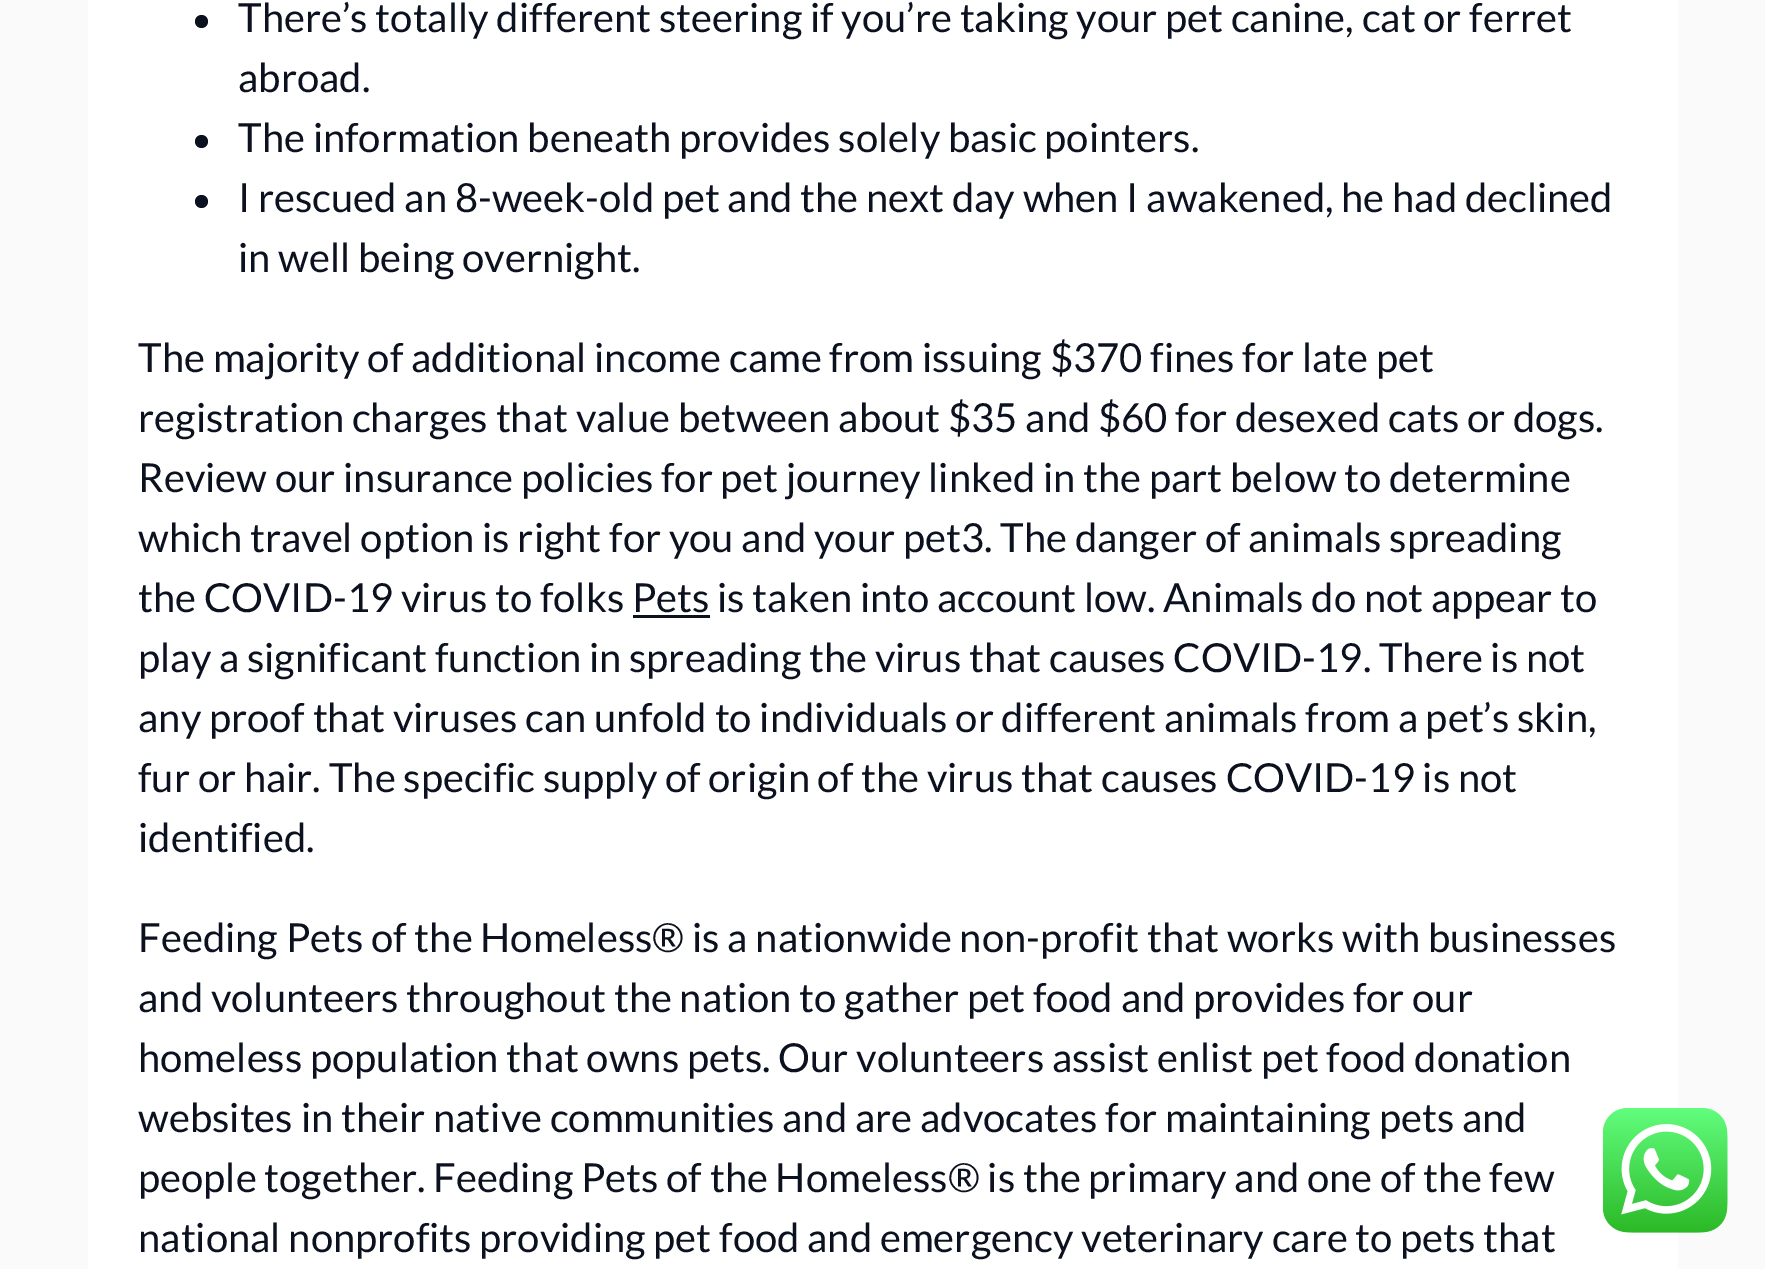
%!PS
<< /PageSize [1765 1269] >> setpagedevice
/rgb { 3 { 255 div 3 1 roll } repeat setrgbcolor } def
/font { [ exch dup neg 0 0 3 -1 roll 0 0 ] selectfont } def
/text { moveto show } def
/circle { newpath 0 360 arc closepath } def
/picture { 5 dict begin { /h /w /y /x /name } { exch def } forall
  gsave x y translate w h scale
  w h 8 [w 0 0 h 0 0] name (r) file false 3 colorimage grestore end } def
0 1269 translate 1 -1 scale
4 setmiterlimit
250 250 250 rgb
0 0 1765 1269 rectfill
255 255 255 rgb
88 0 1590 1269 rectfill
11 17 30 rgb
201.5 21.5 6.5 circle fill
201.5 141.5 6.5 circle fill
201.5 201.5 6.5 circle fill
633 615 77 3 rectfill
(img_01.rgb) 1603 1108 125 125 picture
/Lato-Regular 40 font
(There’s totally different steering if you’re taking your pet canine, cat or ferret) 238 32 text
(abroad.) 238 92 text
(The information beneath provides solely basic pointers.) 238 152 text
(I rescued an 8-week-old pet and the next day when I awakened, he had declined) 238 212 text
(in well being overnight.) 238 272 text
(The majority of additional income came from issuing $370 fines for late pet) 138 372 text
(registration charges that value between about $35 and $60 for desexed cats or dogs.) 138 432 text
(Review our insurance policies for pet journey linked in the part below to determine) 138 492 text
(which travel option is right for you and your pet3. The danger of animals spreading) 138 552 text
(the COVID-19 virus to folks Pets is taken into account low. Animals do not appear to) 138 612 text
(play a significant function in spreading the virus that causes COVID-19. There is not) 138 672 text
(any proof that viruses can unfold to individuals or different animals from a pet’s skin,) 138 732 text
(fur or hair. The specific supply of origin of the virus that causes COVID-19 is not) 138 792 text
(identified.) 138 852 text
(Feeding Pets of the Homeless® is a nationwide non-profit that works with businesses) 138 952 text
(and volunteers throughout the nation to gather pet food and provides for our) 138 1012 text
(homeless population that owns pets. Our volunteers assist enlist pet food donation) 138 1072 text
(websites in their native communities and are advocates for maintaining pets and) 138 1132 text
(people together. Feeding Pets of the Homeless® is the primary and one of the few) 138 1192 text
(national nonprofits providing pet food and emergency veterinary care to pets that) 138 1252 text
showpage
